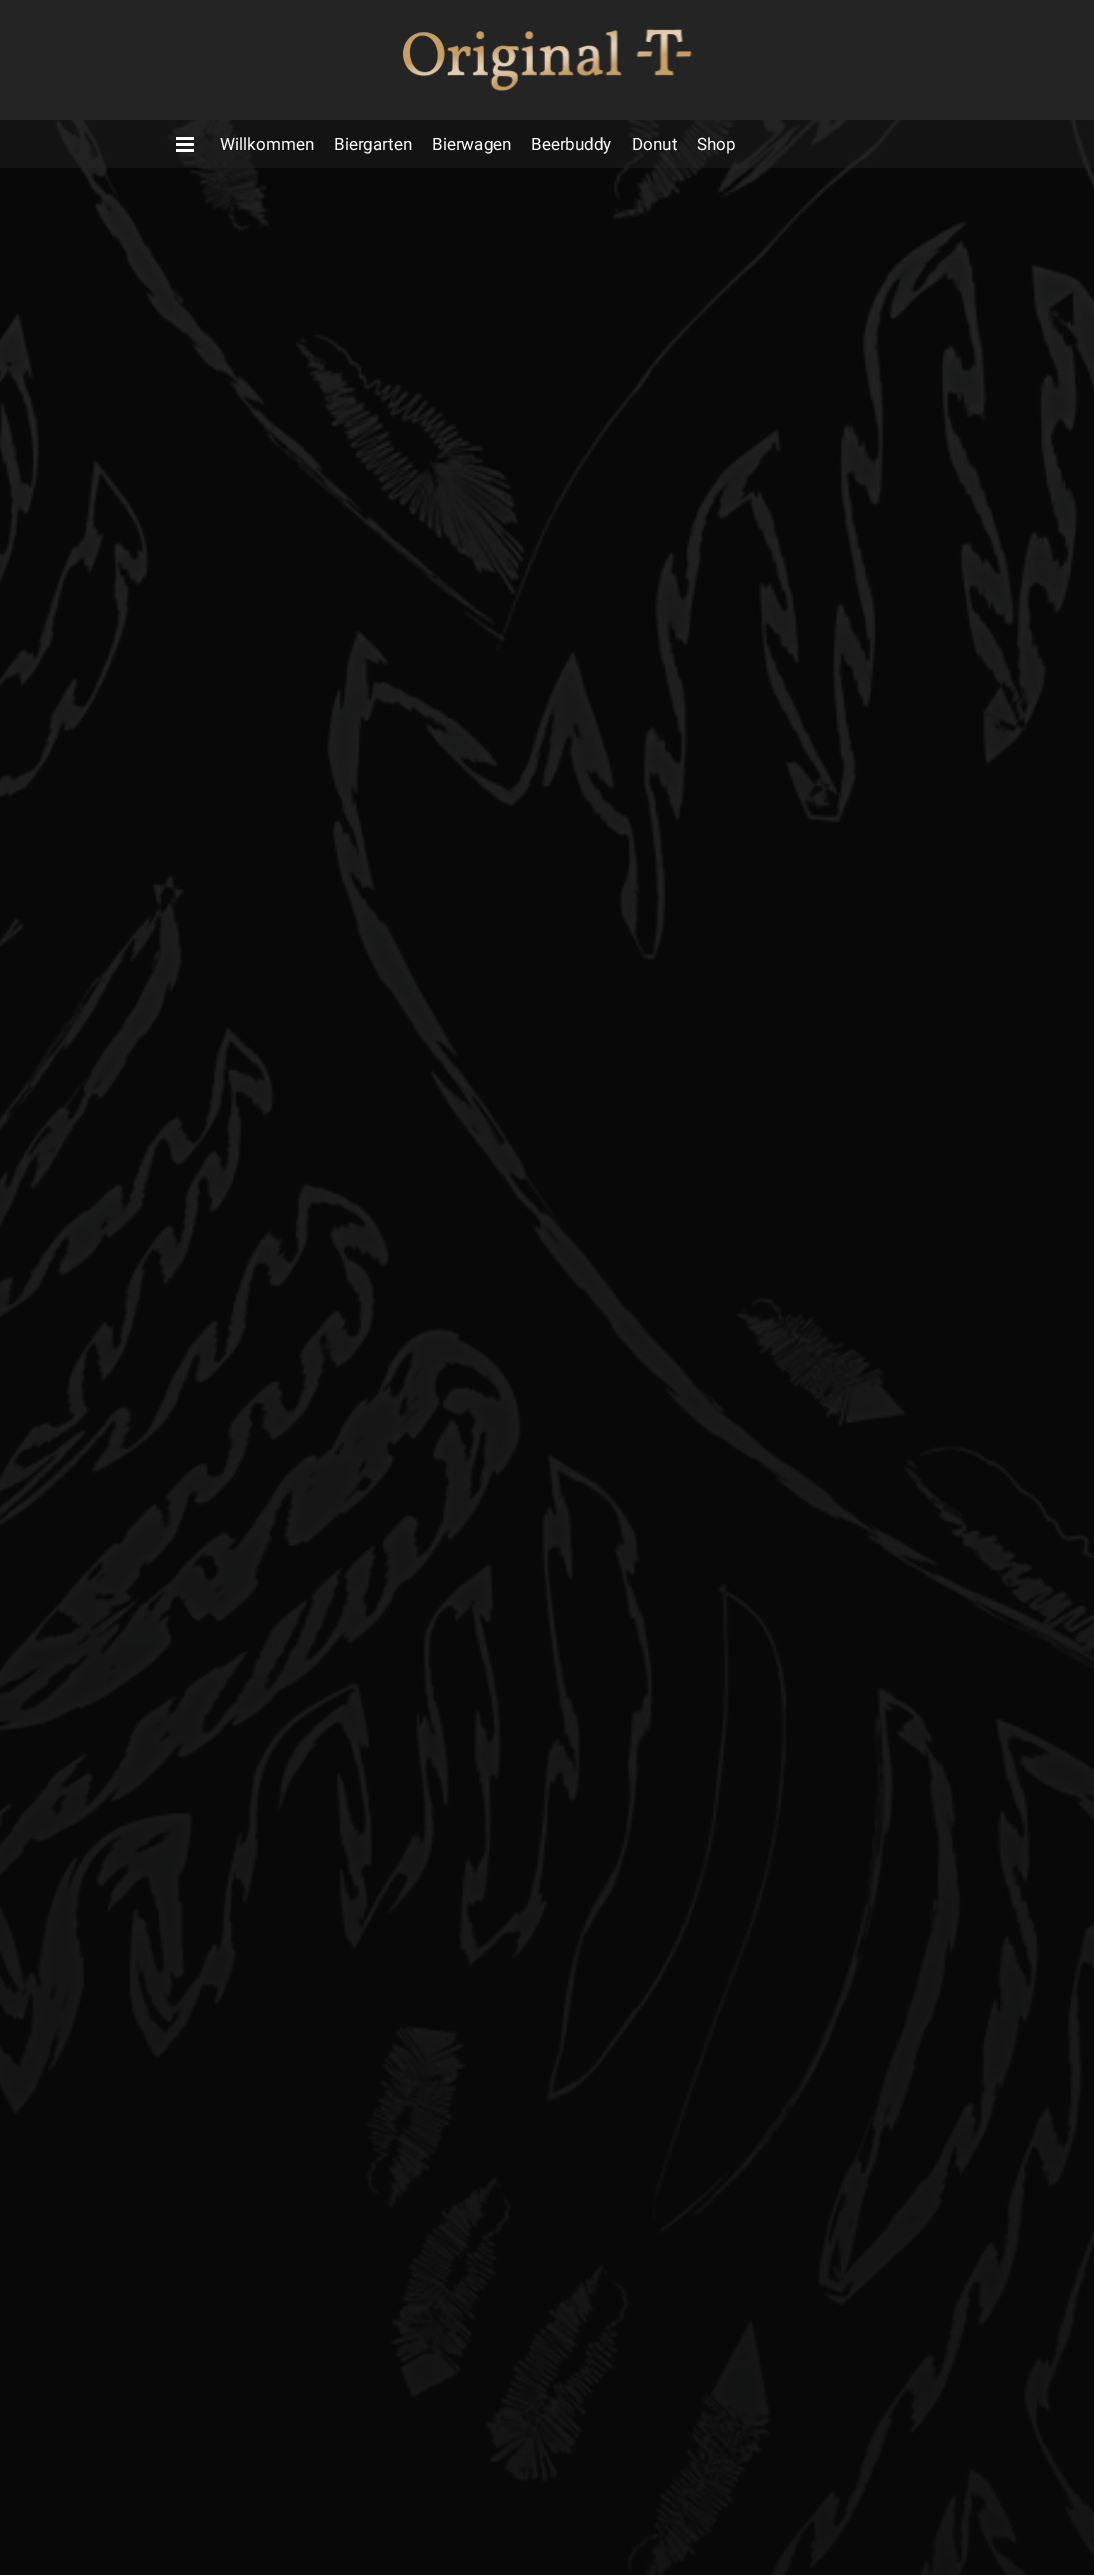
%!PS
<< /PageSize [1094 2575] /PageUsesTransparency true >> setpagedevice
/rgb { 3 { 255 div 3 1 roll } repeat setrgbcolor } def
/font { [ exch dup neg 0 0 3 -1 roll 0 0 ] selectfont } def
/text { moveto show } def
/alpha { dup .setfillconstantalpha .setstrokeconstantalpha } def
/picture { 5 dict begin { /h /w /y /x /name } { exch def } forall
  gsave x y translate w h scale
  w h 8 [w 0 0 h 0 0] name (r) file false 3 colorimage grestore end } def
0 .pushpdf14devicefilter
0 2575 translate 1 -1 scale
4 setmiterlimit
255 255 255 rgb
0 0 1094 2575 rectfill
(img_01.rgb) 0 120 1094 2455 picture
36 36 36 rgb
0 0 1094 120 rectfill
(img_02.rgb) 403 29 289 63 picture
0.36 alpha
38 38 38 rgb
0 120 1094 48 rectfill
1 alpha
255 255 255 rgb
176 137 18 3 rectfill
176 143 18 3 rectfill
176 149 18 3 rectfill
/Roboto-Regular 17 font
(Willkommen) 220 150 text
(Biergarten) 334 150 text
(Bierwagen) 432 150 text
(Beerbuddy) 531 150 text
(Donut) 632 150 text
(Shop) 697 150 text
.poppdf14devicefilter showpage
